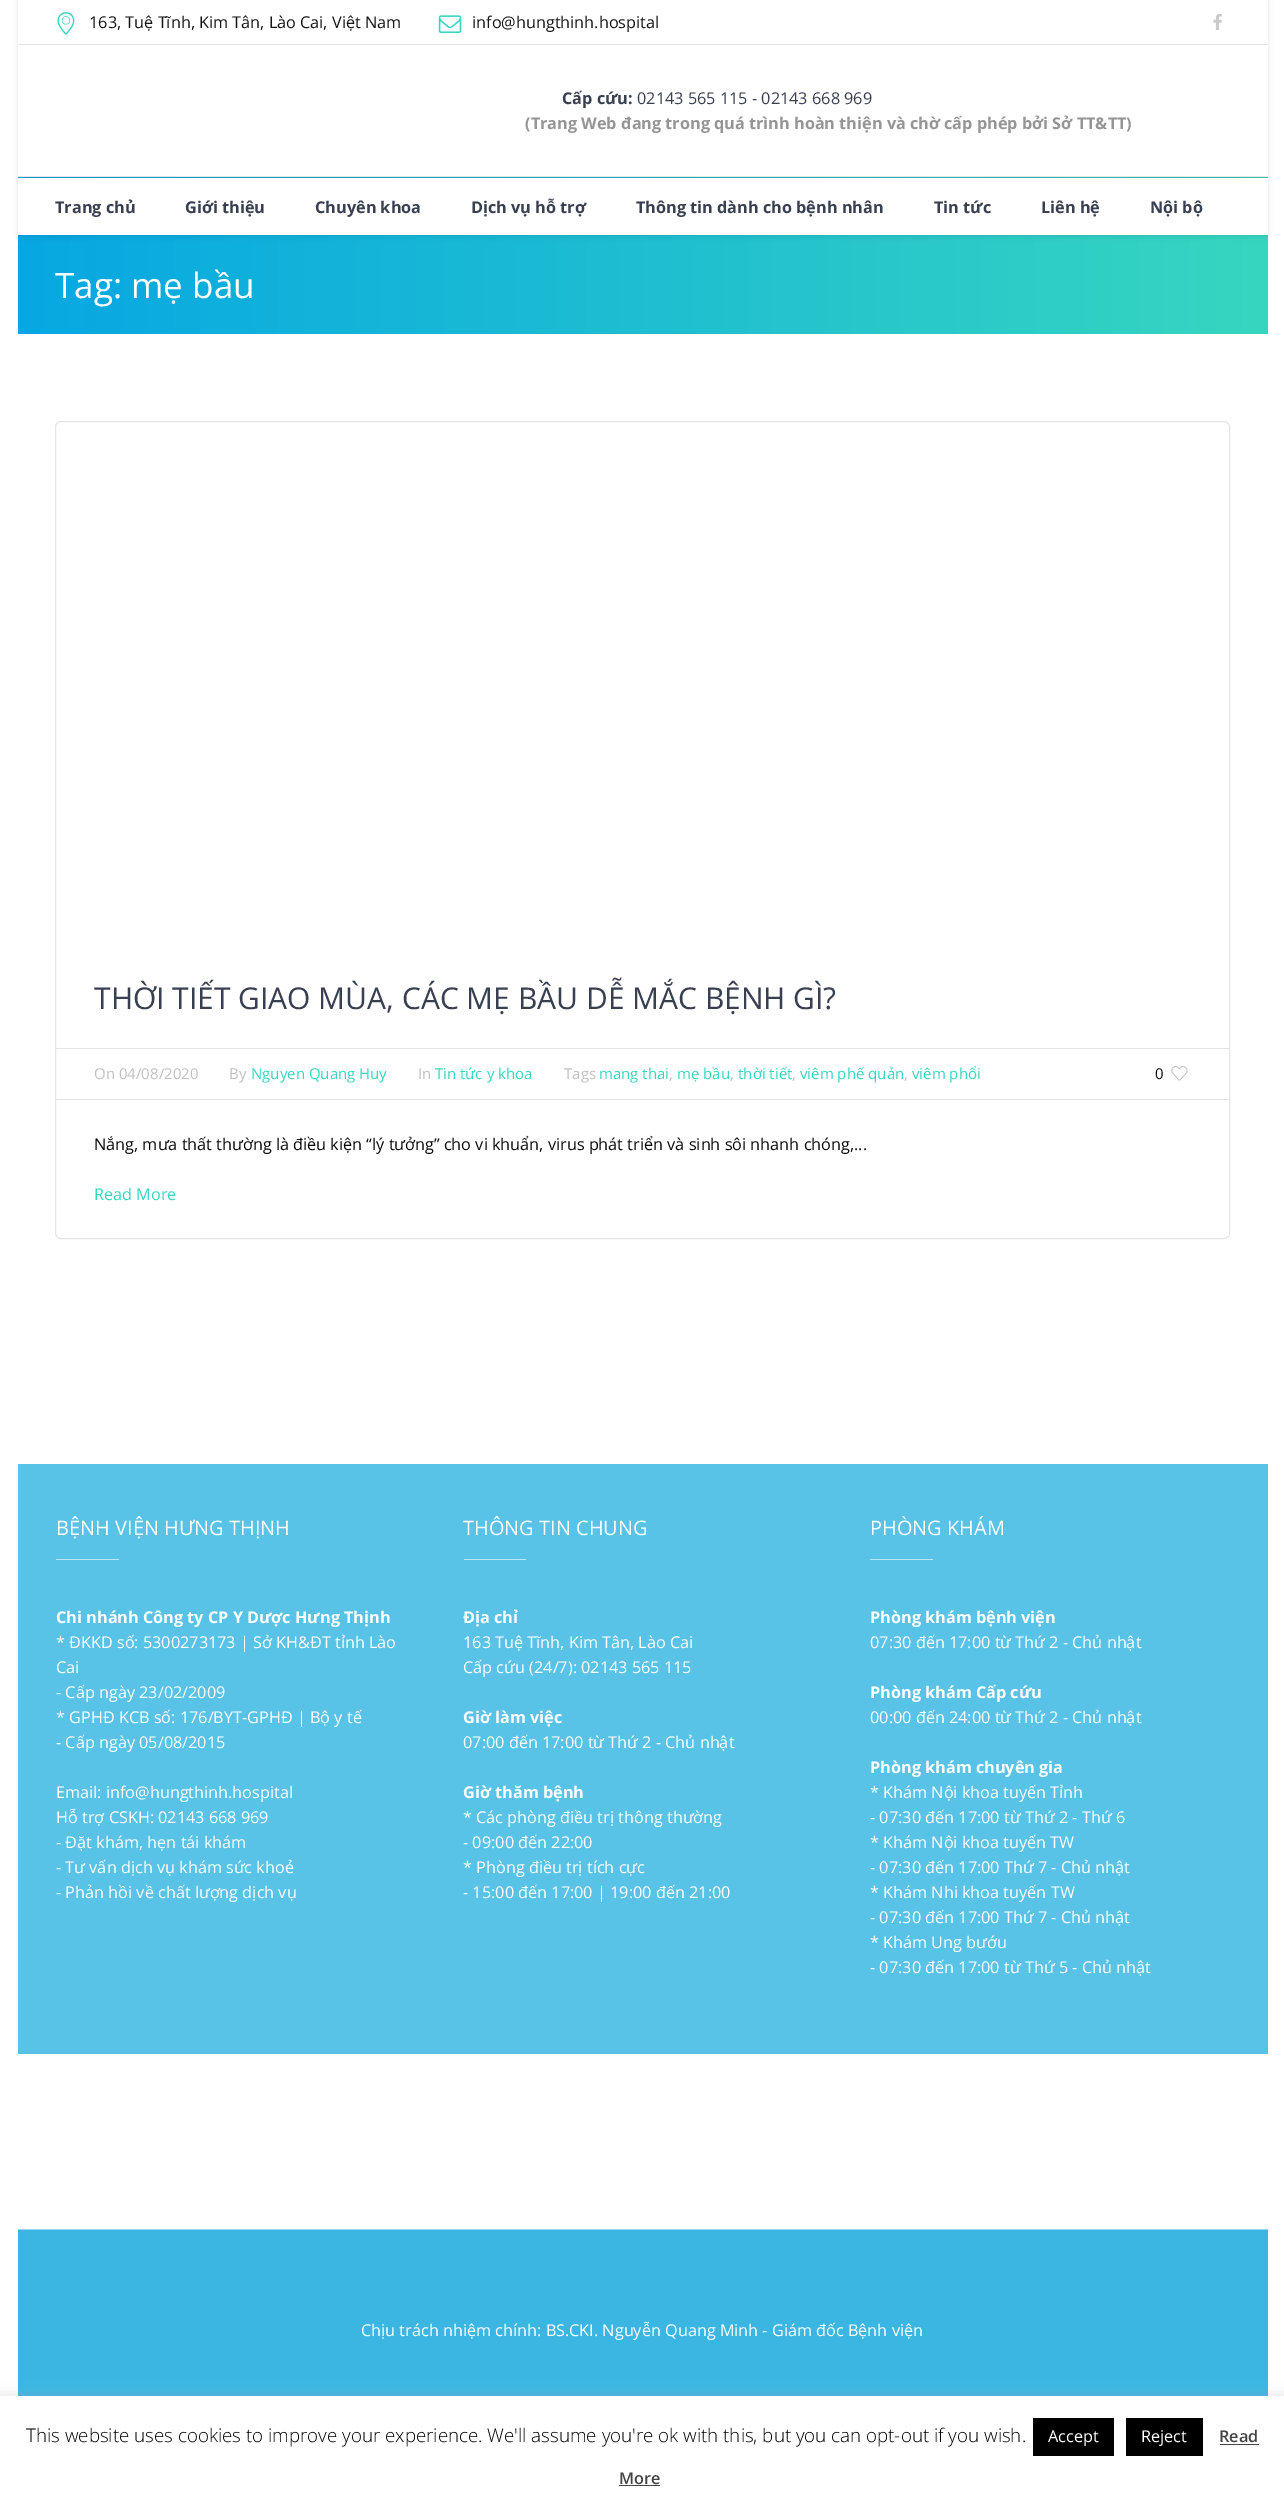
%!PS
<< /PageSize [1284 2504] /PageUsesTransparency true >> setpagedevice
/rgb { 3 { 255 div 3 1 roll } repeat setrgbcolor } def
/font { [ exch dup neg 0 0 3 -1 roll 0 0 ] selectfont } def
/text { moveto show } def
/alpha { dup .setfillconstantalpha .setstrokeconstantalpha } def
/roundrect { 5 dict begin { /r /h /w /y /x } { exch def } forall
  x r add y moveto x w add y 2 copy h add r arct x w add y h add x 1 index r arct
  x y h add x y r arct x y 2 copy exch w add exch r arct closepath end } def
/shadow { 12 dict begin { /a /b /q /h /w /y /x } { exch def } forall gsave /was 0 def
  9 -2 -9 { dup b mul 4 div /e exch def 1 sub .425 mul 2.718 exch exp 1 add a .99 .min exch div /now exch def
    1 1 now sub 1 was sub div sub alpha /was now def
    w h .min e 2 mul add 0 gt { x e sub y e sub w e 2 mul add h e 2 mul add
      q e add b .6 mul add w h .min 2 div e add .min 0 .max roundrect fill } if } for grestore end } def
/picture { 5 dict begin { /h /w /y /x /name } { exch def } forall
  gsave x y translate w h scale
  w h 8 [w 0 0 h 0 0] name (r) file false 3 colorimage grestore end } def
0 .pushpdf14devicefilter
0 2504 translate 1 -1 scale
4 setmiterlimit
255 255 255 rgb
0 0 1284 2504 rectfill
gsave 18 177 moveto 1250 0 rlineto 0 157 rlineto -1250 0 rlineto closepath clip newpath
<< /ShadingType 2 /ColorSpace /DeviceRGB /Coords [18 167 1268 167] /Extend [true true] /Function << /FunctionType 2 /Domain [0 1] /C0 [0.027 0.655 0.89] /C1 [0.216 0.839 0.753] /N 1 >> >> shfill grestore
0 0 0 rgb
18 1 1250 235 0 3 0.1 shadow
255 255 255 rgb
18 0 1250 44 rectfill
229 229 229 rgb
18 44 1250 1 rectfill
(img_01.rgb) 57 12 18 23 picture
(img_02.rgb) 438 15 24 18 picture
(img_03.rgb) 1213 13 9 18 picture
255 255 255 rgb
18 45 1250 131 rectfill
229 229 229 rgb
18 176 1250 1 rectfill
255 255 255 rgb
18 178 1250 57 rectfill
229 229 229 rgb
55.5 421.5 1174 817 5.5 roundrect stroke
56 1048 1173 1 rectfill
56 1099 1173 1 rectfill
(img_04.rgb) 1171 1066 17 15 picture
89 194 231 rgb
18 1464 1250 590 rectfill
190 231 246 rgb
56 1559 63 1 rectfill
464 1559 62 1 rectfill
870 1559 63 1 rectfill
59 182 227 rgb
18 2230 1250 166 rectfill
147 215 240 rgb
18 2229 1250 1 rectfill
172 171 171 rgb
0 2395 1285 109 0 6 0.3 shadow
255 255 255 rgb
0 2396 1284 108 rectfill
0 0 0 rgb
1033 2418 81 38 rectfill
1126 2418 77 38 rectfill
68 68 68 rgb
1220 2444 39 1 rectfill
619 2485 41 1 rectfill
/OpenSans-Regular 16.25 font
21 21 21 rgb
(163, Tuệ Tĩnh, Kim Tân, Lào Cai, Việt Nam) 89 28 text
(info@hungthinh.hospital) 472 28 text
/OpenSans-Bold 16.25 font
55 63 80 rgb
(Cấp cứu:) 562 104 text
/OpenSans-Regular 16.25 font
(02143 565 115 - 02143 668 969) 637 104 text
/OpenSans-Bold 16.25 font
149 149 149 rgb
(\(Trang Web đang trong quá trình hoàn thiện và chờ cấp phép bởi Sở TT&TT\)) 525 129 text
55 63 80 rgb
(Trang chủ) 55 213 text
(Giới thiệu) 185 213 text
(Chuyên khoa) 315 213 text
(Dịch vụ hỗ trợ) 471 213 text
(Thông tin dành cho bệnh nhân) 636 213 text
(Tin tức) 934 213 text
(Liên hệ) 1041 213 text
(Nội bộ) 1150 213 text
/OpenSans-Regular 35 font
255 255 255 rgb
(Tag: mẹ bầu) 55 298 text
/OpenSans-Regular 30 font
55 63 80 rgb
(THỜI TIẾT GIAO MÙA, CÁC MẸ BẦU DỄ MẮC BỆNH GÌ?) 94 1009 text
/OpenSans-Regular 15 font
192 192 192 rgb
(On 04/08/2020) 94 1079 text
(By) 229 1079 text
55 214 192 rgb
(Nguyen Quang Huy) 251 1079 text
192 192 192 rgb
(In) 418 1079 text
55 214 192 rgb
(Tin tức y khoa) 435 1079 text
192 192 192 rgb
(Tags) 564 1079 text
55 214 192 rgb
(mang thai) 599 1079 text
192 192 192 rgb
(,) 669 1079 text
55 214 192 rgb
(mẹ bầu) 677 1079 text
192 192 192 rgb
(,) 730 1079 text
55 214 192 rgb
(thời tiết) 738 1079 text
192 192 192 rgb
(,) 792 1079 text
55 214 192 rgb
(viêm phế quản) 800 1079 text
192 192 192 rgb
(,) 904 1079 text
55 214 192 rgb
(viêm phổi) 912 1079 text
10 10 10 rgb
(0) 1155 1079 text
/OpenSans-Regular 16.25 font
(Nắng, mưa thất thường là điều kiện “lý tưởng” cho vi khuẩn, virus phát triển và sinh sôi nhanh chóng,...) 94 1150 text
55 214 192 rgb
(Read More) 94 1200 text
/OpenSans-Regular 20 font
255 255 255 rgb
(BỆNH VIỆN HƯNG THỊNH) 56 1535 text
/OpenSans-Bold 16.25 font
(Chi nhánh Công ty CP Y Dược Hưng Thịnh) 56 1623 text
/OpenSans-Regular 16.25 font
(* ĐKKD số: 5300273173 | Sở KH&ĐT tỉnh Lào) 56 1648 text
(Cai) 56 1673 text
(- Cấp ngày 23/02/2009) 56 1698 text
(* GPHĐ KCB số: 176/BYT-GPHĐ | Bộ y tế) 56 1723 text
(- Cấp ngày 05/08/2015) 56 1748 text
(Email: info@hungthinh.hospital) 56 1798 text
(Hỗ trợ CSKH: 02143 668 969) 56 1823 text
(- Đặt khám, hẹn tái khám) 56 1848 text
(- Tư vấn dịch vụ khám sức khoẻ) 56 1873 text
(- Phản hồi về chất lượng dịch vụ) 56 1898 text
/OpenSans-Regular 20 font
(THÔNG TIN CHUNG) 463 1535 text
/OpenSans-Bold 16.25 font
(Địa chỉ) 463 1623 text
/OpenSans-Regular 16.25 font
(163 Tuệ Tĩnh, Kim Tân, Lào Cai) 463 1648 text
(Cấp cứu \(24/7\): 02143 565 115) 463 1673 text
/OpenSans-Bold 16.25 font
(Giờ làm việc) 463 1723 text
/OpenSans-Regular 16.25 font
(07:00 đến 17:00 từ Thứ 2 - Chủ nhật) 463 1748 text
/OpenSans-Bold 16.25 font
(Giờ thăm bệnh) 463 1798 text
/OpenSans-Regular 16.25 font
(* Các phòng điều trị thông thường) 463 1823 text
(- 09:00 đến 22:00) 463 1848 text
(* Phòng điều trị tích cực) 463 1873 text
(- 15:00 đến 17:00 | 19:00 đến 21:00) 463 1898 text
/OpenSans-Regular 20 font
(PHÒNG KHÁM) 870 1535 text
/OpenSans-Bold 16.25 font
(Phòng khám bệnh viện) 870 1623 text
/OpenSans-Regular 16.25 font
(07:30 đến 17:00 từ Thứ 2 - Chủ nhật) 870 1648 text
/OpenSans-Bold 16.25 font
(Phòng khám Cấp cứu) 870 1698 text
/OpenSans-Regular 16.25 font
(00:00 đến 24:00 từ Thứ 2 - Chủ nhật) 870 1723 text
/OpenSans-Bold 16.25 font
(Phòng khám chuyên gia) 870 1773 text
/OpenSans-Regular 16.25 font
(* Khám Nội khoa tuyến Tỉnh) 870 1798 text
(- 07:30 đến 17:00 từ Thứ 2 - Thứ 6) 870 1823 text
(* Khám Nội khoa tuyến TW) 870 1848 text
(- 07:30 đến 17:00 Thứ 7 - Chủ nhật) 870 1873 text
(* Khám Nhi khoa tuyến TW) 870 1898 text
(- 07:30 đến 17:00 Thứ 7 - Chủ nhật) 870 1923 text
(* Khám Ung bướu) 870 1948 text
(- 07:30 đến 17:00 từ Thứ 5 - Chủ nhật) 870 1973 text
(Chịu trách nhiệm chính: BS.CKI. Nguyễn Quang Minh - Giám đốc Bệnh viện) 361 2336 text
/OpenSans-Light 18.75 font
0 0 0 rgb
(This website uses cookies to improve your experience. We'll assume you're ok with this, but you can opt-out if you wish.) 26 2442 text
/OpenSans-Regular 16.25 font
255 255 255 rgb
(Accept) 1048 2442 text
(Reject) 1141 2442 text
/OpenSans-SemiBold 16.25 font
68 68 68 rgb
(Read) 1219 2442 text
(More) 619 2484 text
.poppdf14devicefilter showpage
